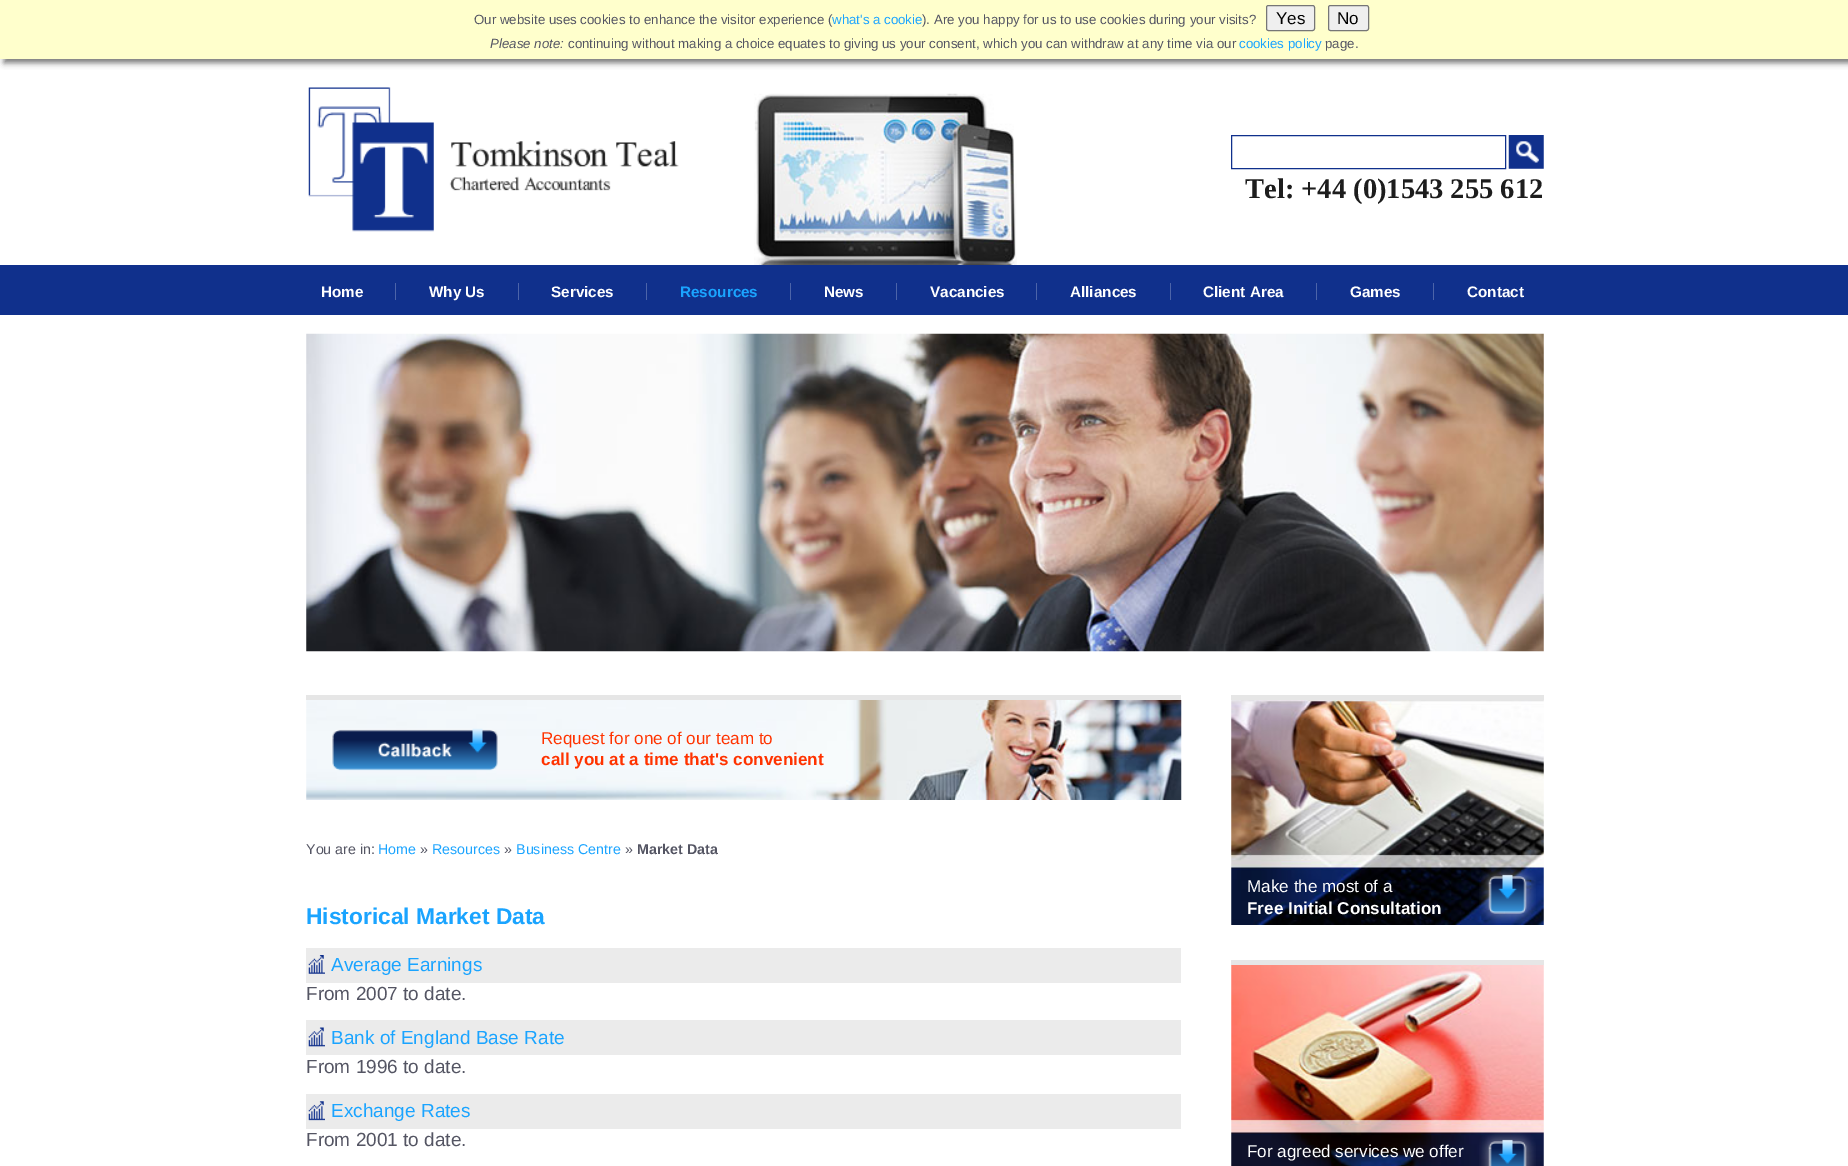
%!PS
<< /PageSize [1848 1166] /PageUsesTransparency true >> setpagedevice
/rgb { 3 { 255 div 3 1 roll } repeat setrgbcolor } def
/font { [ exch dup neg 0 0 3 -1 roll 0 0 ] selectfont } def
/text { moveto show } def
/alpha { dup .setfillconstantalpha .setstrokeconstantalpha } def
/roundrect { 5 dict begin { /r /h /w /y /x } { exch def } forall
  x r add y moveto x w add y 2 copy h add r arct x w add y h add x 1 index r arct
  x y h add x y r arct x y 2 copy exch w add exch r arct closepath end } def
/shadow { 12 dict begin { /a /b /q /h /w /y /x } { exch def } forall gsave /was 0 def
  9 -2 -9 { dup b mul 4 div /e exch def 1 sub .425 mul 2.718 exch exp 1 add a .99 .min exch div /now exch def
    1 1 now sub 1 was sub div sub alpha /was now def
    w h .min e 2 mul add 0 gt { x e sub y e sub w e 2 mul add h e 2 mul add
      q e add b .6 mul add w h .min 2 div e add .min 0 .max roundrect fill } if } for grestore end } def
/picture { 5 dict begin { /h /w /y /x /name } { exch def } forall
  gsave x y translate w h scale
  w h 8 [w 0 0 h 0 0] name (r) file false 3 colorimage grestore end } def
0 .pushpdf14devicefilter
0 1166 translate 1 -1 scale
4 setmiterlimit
255 255 255 rgb
0 0 1848 1166 rectfill
119 119 119 rgb
4 4 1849 59 0 3 1 shadow
255 255 204 rgb
0 0 1848 59 rectfill
239 239 239 rgb
1266.5 5.5 48 25 2 roundrect gsave fill grestore
118 118 118 rgb
stroke
239 239 239 rgb
1328.5 5.5 40 25 2 roundrect gsave fill grestore
118 118 118 rgb
stroke
(img_01.rgb) 308 87 371 145 picture
(img_02.rgb) 754 93 263 172 picture
16 48 140 rgb
1231.5 135.5 274 33 rectstroke
(img_03.rgb) 1508 135 36 34 picture
0 265 1848 50 rectfill
76 100 169 rgb
395 283 1 17 rectfill
518 283 1 17 rectfill
646 283 1 17 rectfill
790 283 1 17 rectfill
896 283 1 17 rectfill
1036 283 1 17 rectfill
1170 283 1 17 rectfill
1316 283 1 17 rectfill
1433 283 1 17 rectfill
(img_04.rgb) 306 333 1238 319 picture
(img_05.rgb) 306 700 876 100 picture
230 230 230 rgb
306 695 875 5 rectfill
(img_06.rgb) 331 728 167 43 picture
235 235 235 rgb
306 948 875 35 rectfill
(img_07.rgb) 308 955 17 19 picture
306 1020 875 35 rectfill
(img_08.rgb) 308 1027 17 20 picture
306 1094 875 35 rectfill
(img_09.rgb) 308 1101 17 20 picture
(img_10.rgb) 1231 700 313 225 picture
230 230 230 rgb
1231 695 313 5 rectfill
(img_11.rgb) 1479 867 57 56 picture
(img_12.rgb) 1231 965 313 201 picture
1231 960 313 5 rectfill
(img_13.rgb) 1479 1132 57 34 picture
/LiberationSans-Regular 13.3 font
84 85 99 rgb
(Our website uses cookies to enhance the visitor experience \() 474 24 text
26 164 255 rgb
(what's a cookie) 832 24 text
84 85 99 rgb
(\). Are you happy for us to use cookies during your visits?) 922 24 text
/LiberationSans-Regular 17 font
0 0 0 rgb
(Yes) 1276 24 text
(No) 1337 24 text
/LiberationSans-Italic 13.3 font
84 85 99 rgb
(Please note:) 490 48 text
/LiberationSans-Regular 13.3 font
(continuing without making a choice equates to giving us your consent, which you can withdraw at any time via our) 568 48 text
26 164 255 rgb
(cookies policy) 1239 48 text
84 85 99 rgb
(page.) 1325 48 text
/LiberationSerif-Bold 28.5 font
29 29 29 rgb
(Tel: +44 \(0\)1543 255 612) 1245 198 text
/LiberationSans-Bold 15.25 font
255 255 255 rgb
(Home) 321 297 text
(Why Us) 429 297 text
(Services) 551 297 text
26 164 255 rgb
(Resources) 680 297 text
255 255 255 rgb
(News) 824 297 text
(Vacancies) 930 297 text
(Alliances) 1070 297 text
(Client Area) 1203 297 text
(Games) 1350 297 text
(Contact) 1467 297 text
/LiberationSans-Regular 17.1 font
255 51 0 rgb
(Request for one of our team to) 541 744 text
/LiberationSans-Bold 17.1 font
(call you at a time that's convenient) 541 765 text
/LiberationSans-Regular 14.25 font
84 85 99 rgb
(You are in:) 306 854 text
26 164 255 rgb
(Home) 378 854 text
84 85 99 rgb
(») 420 854 text
26 164 255 rgb
(Resources) 432 854 text
84 85 99 rgb
(») 504 854 text
26 164 255 rgb
(Business Centre) 516 854 text
84 85 99 rgb
(») 625 854 text
/LiberationSans-Bold 14.25 font
(Market Data) 637 854 text
/LiberationSans-Bold 22.75 font
26 164 255 rgb
(Historical Market Data) 306 924 text
/LiberationSans-Regular 19 font
(Average Earnings) 331 971 text
84 85 99 rgb
(From 2007 to date.) 306 1000 text
26 164 255 rgb
(Bank of England Base Rate) 331 1044 text
84 85 99 rgb
(From 1996 to date.) 306 1073 text
26 164 255 rgb
(Exchange Rates) 331 1117 text
84 85 99 rgb
(From 2001 to date.) 306 1146 text
/LiberationSans-Regular 17.1 font
255 255 255 rgb
(Make the most of a) 1247 892 text
/LiberationSans-Bold 17.1 font
(Free Initial Consultation) 1247 914 text
/LiberationSans-Regular 17.1 font
(For agreed services we offer) 1247 1157 text
.poppdf14devicefilter showpage
